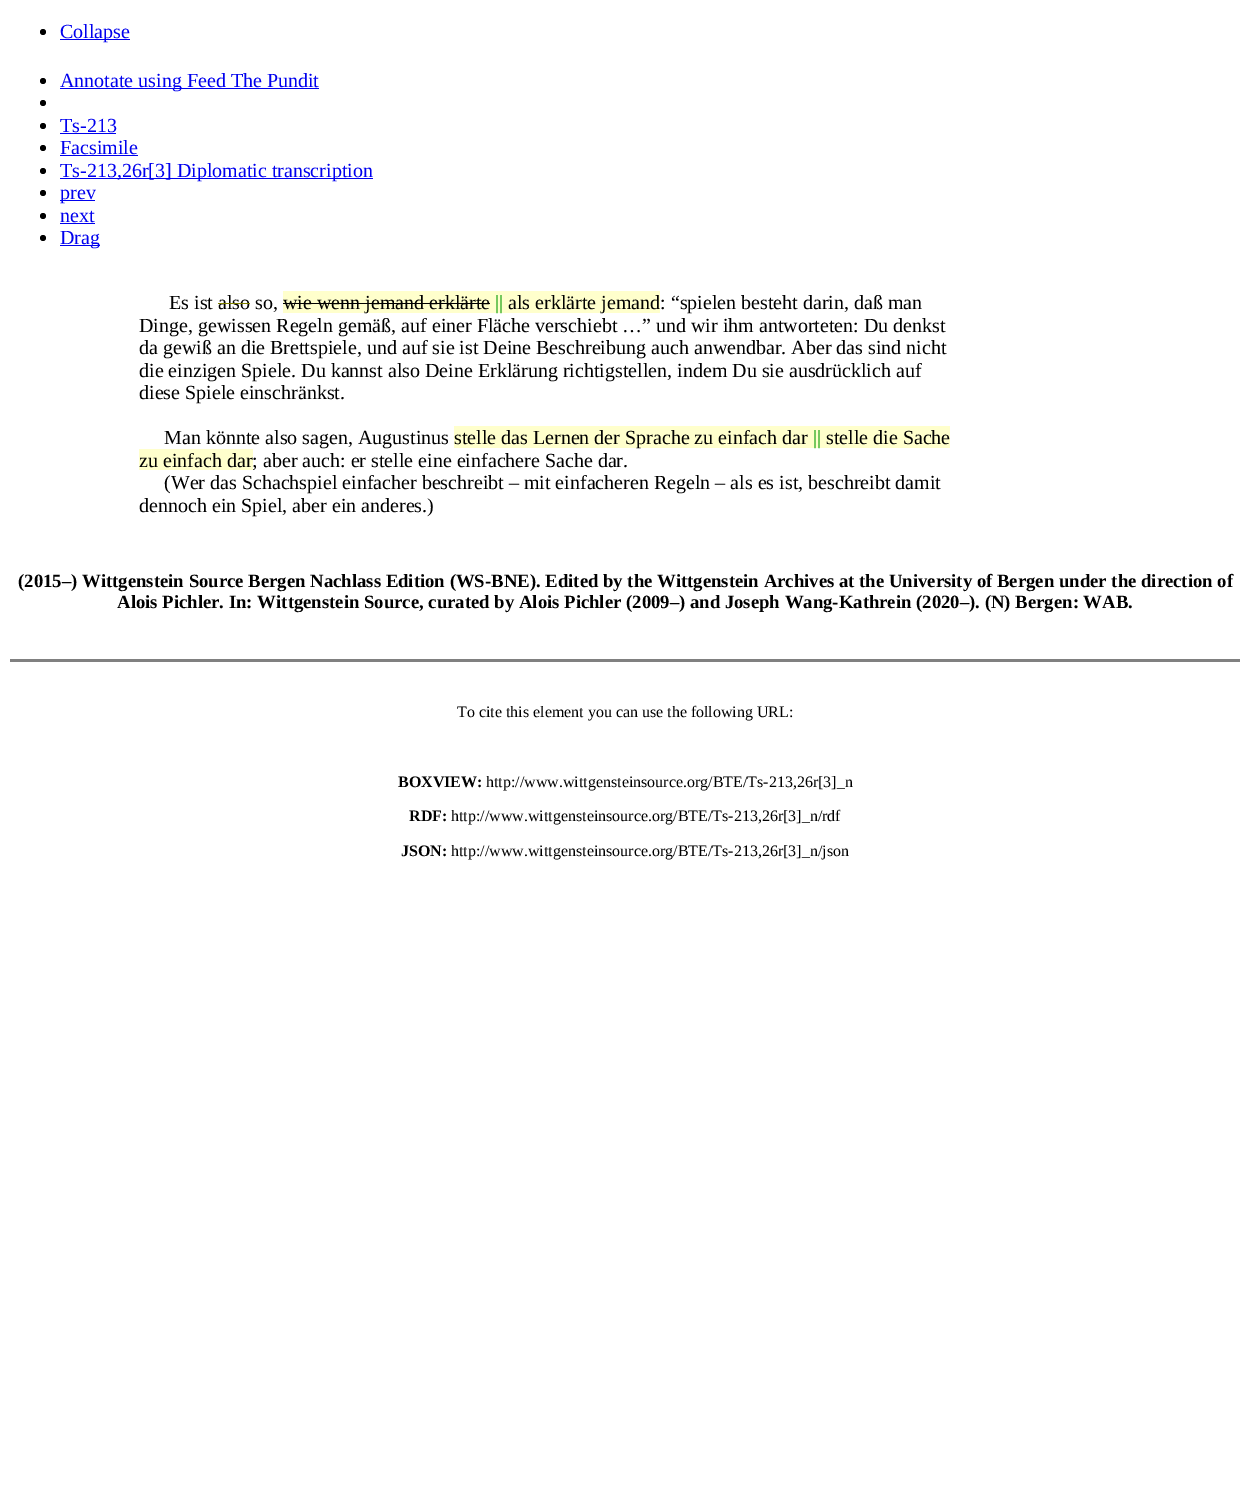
%!PS
<< /PageSize [1250 1503] >> setpagedevice
/rgb { 3 { 255 div 3 1 roll } repeat setrgbcolor } def
/font { [ exch dup neg 0 0 3 -1 roll 0 0 ] selectfont } def
/text { moveto show } def
/circle { newpath 0 360 arc closepath } def
0 1503 translate 1 -1 scale
4 setmiterlimit
255 255 255 rgb
0 0 1250 1503 rectfill
0 0 0 rgb
43 32 3 circle fill
0 0 238 rgb
60 39 70 1 rectfill
0 0 0 rgb
43 81 3 circle fill
0 0 238 rgb
60 88 259 1 rectfill
0 0 0 rgb
43 103 3 circle fill
43 126 3 circle fill
0 0 238 rgb
60 133 56 1 rectfill
0 0 0 rgb
43 148 3 circle fill
0 0 238 rgb
60 155 78 1 rectfill
0 0 0 rgb
43 171 3 circle fill
0 0 238 rgb
60 178 313 1 rectfill
0 0 0 rgb
43 193 3 circle fill
0 0 238 rgb
60 200 35 1 rectfill
0 0 0 rgb
43 216 3 circle fill
0 0 238 rgb
60 223 35 1 rectfill
0 0 0 rgb
43 238 3 circle fill
0 0 238 rgb
60 245 40 1 rectfill
255 255 204 rgb
283 291 377 22 rectfill
0 0 0 rgb
283 303 207 1 rectfill
255 255 204 rgb
454 426 496 22 rectfill
139 449 114 21 rectfill
128 128 128 rgb
10 659 1230 3 rectfill
/LiberationSerif-Regular 20 font
0 0 238 rgb
(Collapse) 60 38 text
(Annotate using Feed The Pundit) 60 87 text
(Ts-213) 60 132 text
(Facsimile) 60 154 text
(Ts-213,26r[3] Diplomatic transcription) 60 177 text
(prev) 60 199 text
(next) 60 222 text
(Drag) 60 244 text
0 0 0 rgb
(Es ist also so,) 169 309 text
(wie wenn jemand erklärte) 283 309 text
0 153 0 rgb
(||) 495 309 text
0 0 0 rgb
(als erklärte jemand: “spielen besteht darin, daß man) 508 309 text
128 128 0 rgb
218 303 32 1 rectfill
0 0 0 rgb
(Dinge, gewissen Regeln gemäß, auf einer Fläche verschiebt …” und wir ihm antworteten: Du denkst) 139 332 text
(da gewiß an die Brettspiele, und auf sie ist Deine Beschreibung auch anwendbar. Aber das sind nicht) 139 354 text
(die einzigen Spiele. Du kannst also Deine Erklärung richtigstellen, indem Du sie ausdrücklich auf) 139 377 text
(diese Spiele einschränkst.) 139 399 text
(Man könnte also sagen, Augustinus) 164 444 text
(stelle das Lernen der Sprache zu einfach dar) 454 444 text
0 153 0 rgb
(||) 813 444 text
0 0 0 rgb
(stelle die Sache) 826 444 text
(zu einfach dar; aber auch: er stelle eine einfachere Sache dar.) 139 467 text
(\(Wer das Schachspiel einfacher beschreibt – mit einfacheren Regeln – als es ist, beschreibt damit) 164 489 text
(dennoch ein Spiel, aber ein anderes.\)) 139 512 text
/LiberationSerif-Bold 18.72 font
(\(2015–\) Wittgenstein Source Bergen Nachlass Edition \(WS-BNE\). Edited by the Wittgenstein Archives at the University of Bergen under the direction of) 18 587 text
(Alois Pichler. In: Wittgenstein Source, curated by Alois Pichler \(2009–\) and Joseph Wang-Kathrein \(2020–\). \(N\) Bergen: WAB.) 117 608 text
/LiberationSerif-Regular 16 font
(To cite this element you can use the following URL:) 457 717 text
/LiberationSerif-Bold 16 font
(BOXVIEW:) 398 787 text
/LiberationSerif-Regular 16 font
(http://www.wittgensteinsource.org/BTE/Ts-213,26r[3]_n) 486 787 text
/LiberationSerif-Bold 16 font
(RDF:) 409 821 text
/LiberationSerif-Regular 16 font
(http://www.wittgensteinsource.org/BTE/Ts-213,26r[3]_n/rdf) 451 821 text
/LiberationSerif-Bold 16 font
(JSON:) 401 856 text
/LiberationSerif-Regular 16 font
(http://www.wittgensteinsource.org/BTE/Ts-213,26r[3]_n/json) 451 856 text
showpage
